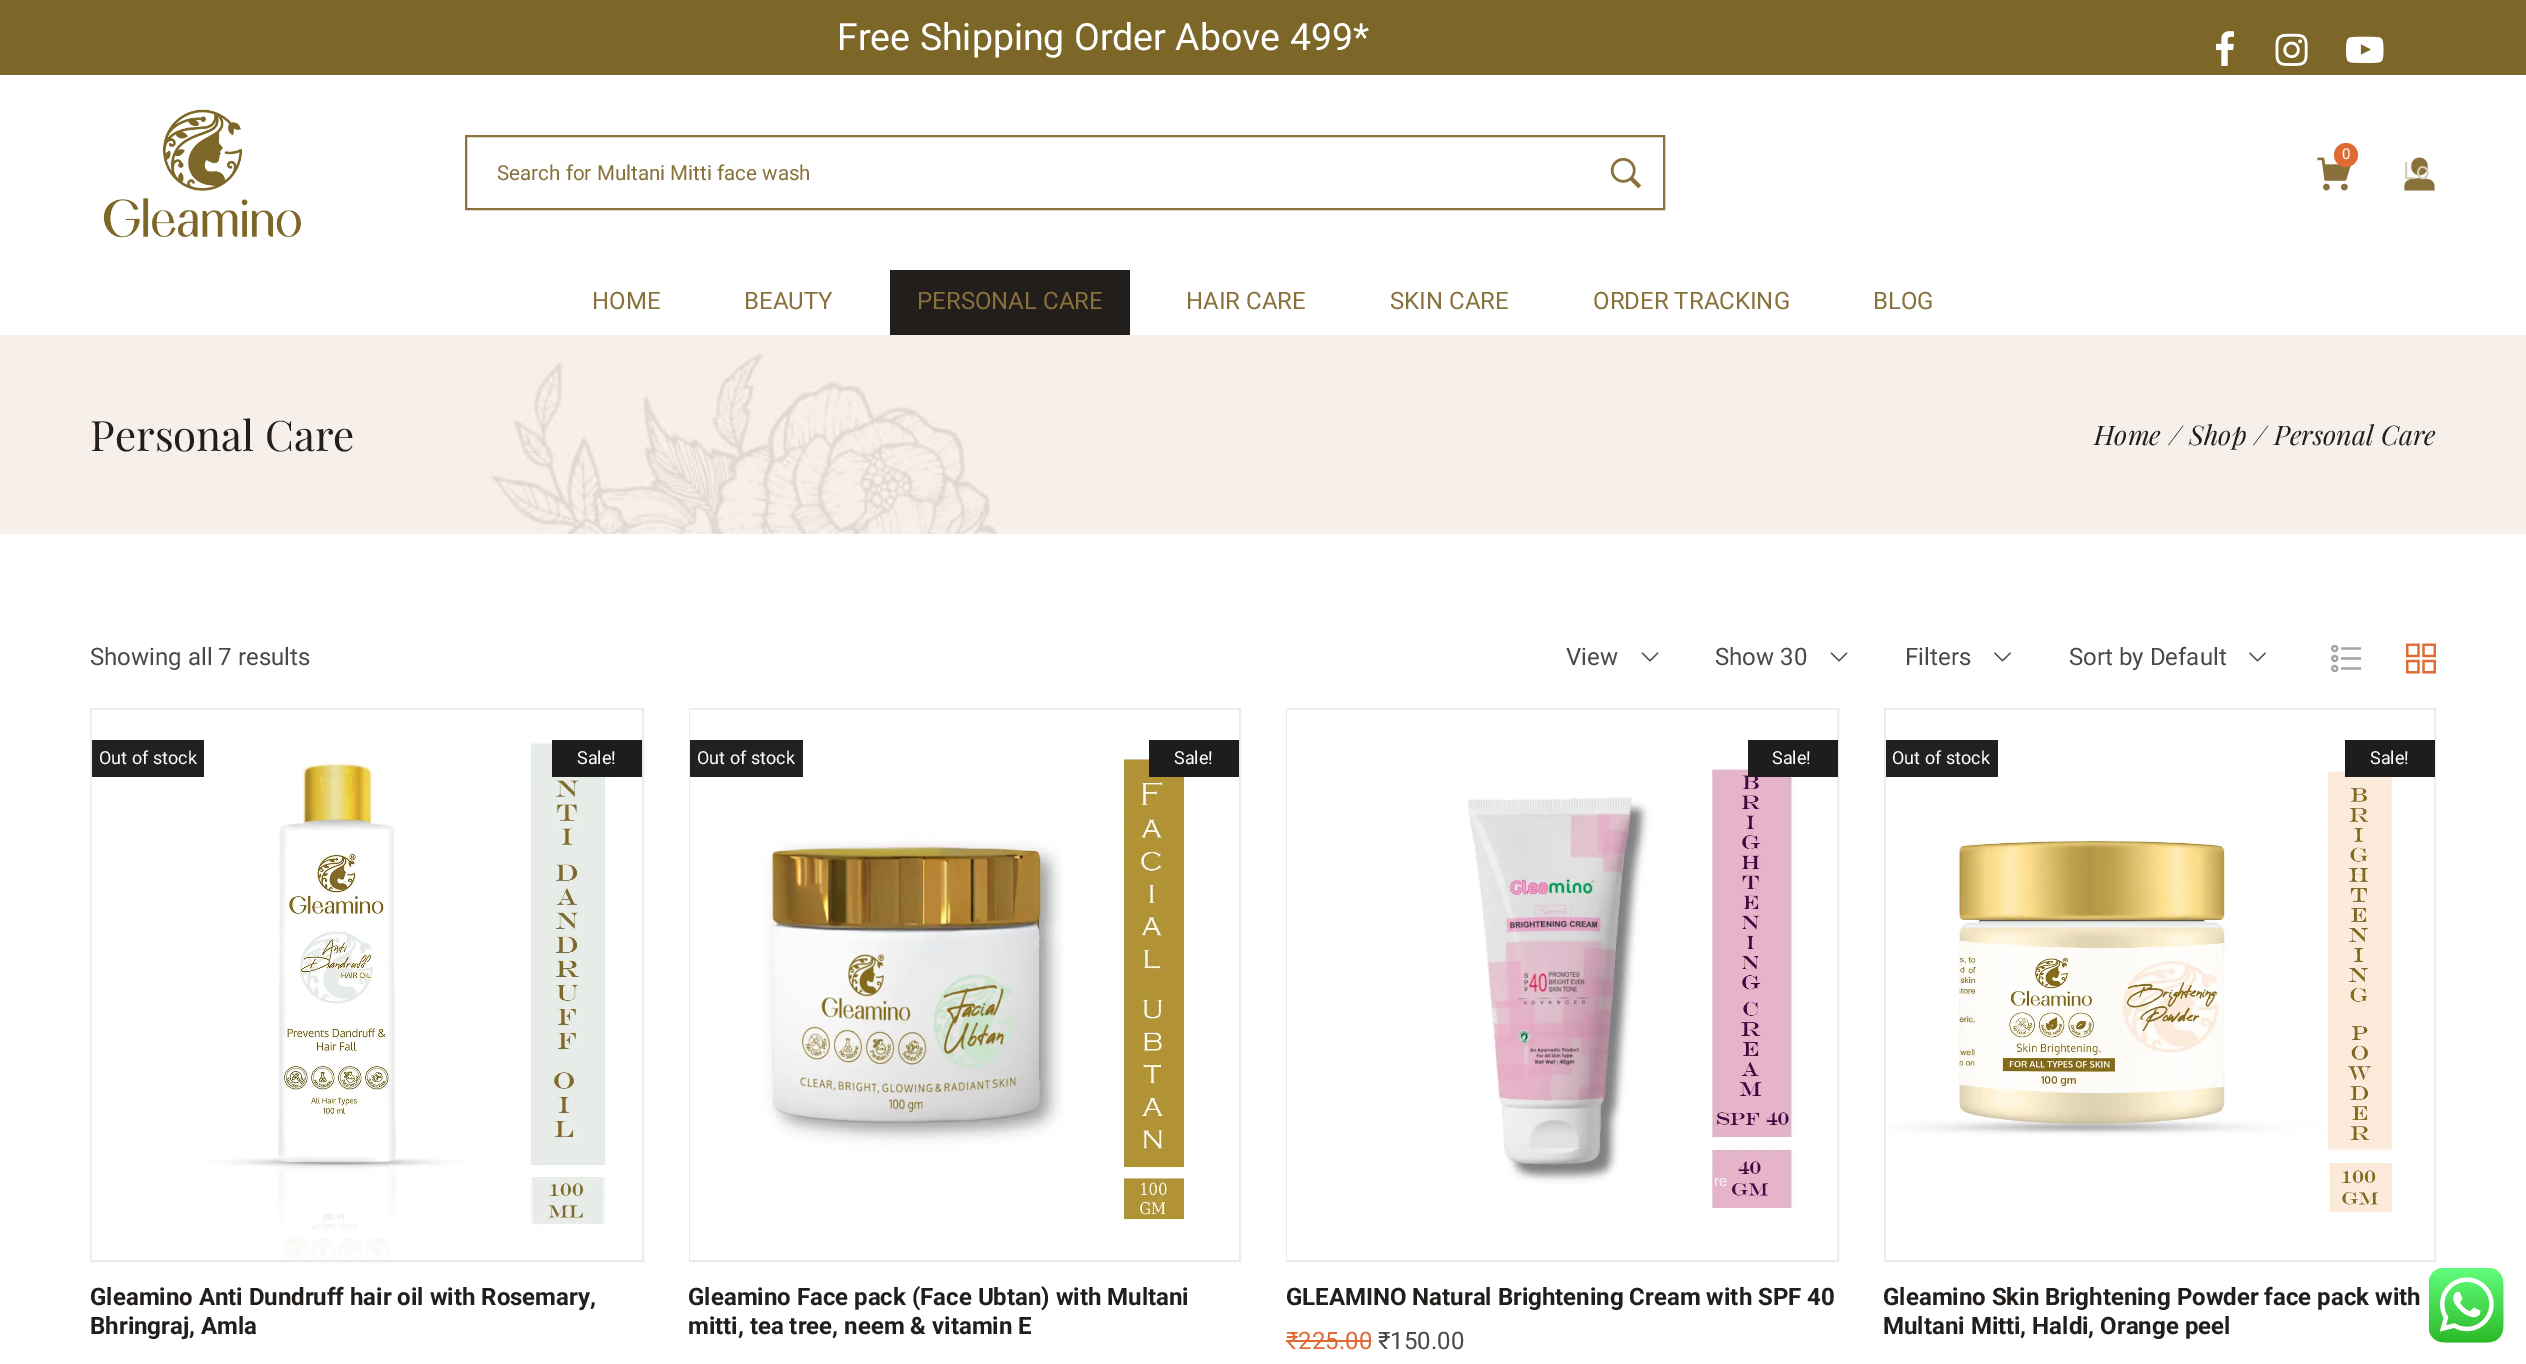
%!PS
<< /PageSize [2526 1364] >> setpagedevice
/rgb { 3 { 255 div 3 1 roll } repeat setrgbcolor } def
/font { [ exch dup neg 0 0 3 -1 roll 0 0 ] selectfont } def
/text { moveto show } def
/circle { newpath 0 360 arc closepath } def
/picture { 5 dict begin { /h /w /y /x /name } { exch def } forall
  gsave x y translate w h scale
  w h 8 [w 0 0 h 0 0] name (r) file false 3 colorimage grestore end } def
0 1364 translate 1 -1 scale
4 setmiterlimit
255 255 255 rgb
0 0 2526 1364 rectfill
124 103 40 rgb
0 0 2526 75 rectfill
(img_01.rgb) 2216 31 19 35 picture
(img_02.rgb) 2275 33 33 33 picture
(img_03.rgb) 2346 36 38 28 picture
(img_04.rgb) 103 109 198 129 picture
137 113 60 rgb
2 setlinewidth
466 136 1198 73 rectstroke
(img_05.rgb) 1610 157 32 32 picture
(img_06.rgb) 2317 157 34 34 picture
221 107 51 rgb
2346 155 12 circle fill
(img_07.rgb) 2404 157 31 34 picture
33 30 28 rgb
890 270 240 65 rectfill
(img_08.rgb) 0 335 2526 199 picture
(img_09.rgb) 1641 652 18 10 picture
(img_09.rgb) 1830 652 18 10 picture
(img_10.rgb) 1994 652 17 10 picture
(img_10.rgb) 2249 652 17 10 picture
(img_11.rgb) 2331 644 30 29 picture
(img_12.rgb) 2406 643 30 31 picture
235 235 235 rgb
91 709 552 552 rectstroke
(img_13.rgb) 91 709 551 551 picture
33 33 33 rgb
92 740 112 37 rectfill
29 29 29 rgb
552 740 90 37 rectfill
235 235 235 rgb
690 709 550 552 rectstroke
(img_14.rgb) 690 709 549 551 picture
33 33 33 rgb
690 740 113 37 rectfill
29 29 29 rgb
1149 740 90 37 rectfill
235 235 235 rgb
1287 709 551 552 rectstroke
(img_15.rgb) 1287 709 551 551 picture
29 29 29 rgb
1748 740 90 37 rectfill
221 107 51 rgb
1286 1340 85 2 rectfill
235 235 235 rgb
1885 709 550 552 rectstroke
(img_16.rgb) 1885 709 550 551 picture
33 33 33 rgb
1886 740 112 37 rectfill
29 29 29 rgb
2345 740 90 37 rectfill
(img_17.rgb) 2429 1268 75 75 picture
/Roboto-Regular 37.5 font
255 255 255 rgb
(Free Shipping Order Above 499*) 837 50 text
/Roboto-Regular 20.6 font
137 113 60 rgb
(Search for Multani Mitti face wash) 497 180 text
/Roboto-Regular 15 font
255 255 255 rgb
(0) 2342 159 text
/Roboto-Regular 24 font
213 205 186 rgb
(Lo) 2403 179 text
137 113 60 rgb
(HOME) 592 309 text
(BEAUTY) 744 309 text
(PERSONAL CARE) 917 309 text
(HAIR CARE) 1186 309 text
(SKIN CARE) 1390 309 text
(ORDER TRACKING) 1593 309 text
(BLOG) 1873 309 text
/PlayfairDisplay-Regular 42 font
33 30 28 rgb
(Personal Care) 90 451 text
/PlayfairDisplay-Italic 27 font
(Home) 2094 445 text
(/) 2169 445 text
(Shop) 2189 445 text
(/) 2254 445 text
(Personal Care) 2274 445 text
/Roboto-Regular 24 font
73 73 73 rgb
(Showing all 7 results) 90 665 text
(View) 1566 665 text
(Show 30) 1715 665 text
(Filters) 1905 665 text
(Sort by Default) 2069 665 text
/Roboto-Regular 18 font
255 255 255 rgb
(Out of stock) 99 764 text
(Sale!) 577 764 text
/Roboto-Bold 24 font
33 30 28 rgb
(Gleamino Anti Dundruff hair oil with Rosemary,) 90 1305 text
(Bhringraj, Amla) 90 1334 text
/Roboto-Regular 18 font
255 255 255 rgb
(Out of stock) 697 764 text
(Sale!) 1174 764 text
/Roboto-Bold 24 font
33 30 28 rgb
(Gleamino Face pack \(Face Ubtan\) with Multani) 688 1305 text
(mitti, tea tree, neem & vitamin E) 688 1334 text
/Roboto-Regular 18 font
255 255 255 rgb
(Sale!) 1772 764 text
/LiberationSans-Regular 15 font
251 244 247 rgb
(re) 1714 1186 text
/Roboto-Bold 24 font
33 30 28 rgb
(GLEAMINO Natural Brightening Cream with SPF 40) 1286 1305 text
/Roboto-Regular 24 font
221 107 51 rgb
(₹225.00) 1286 1349 text
73 73 73 rgb
(₹150.00) 1378 1349 text
/Roboto-Regular 18 font
255 255 255 rgb
(Out of stock) 1892 764 text
(Sale!) 2370 764 text
/Roboto-Bold 24 font
33 30 28 rgb
(Gleamino Skin Brightening Powder face pack with) 1883 1305 text
(Multani Mitti, Haldi, Orange peel) 1883 1334 text
showpage
